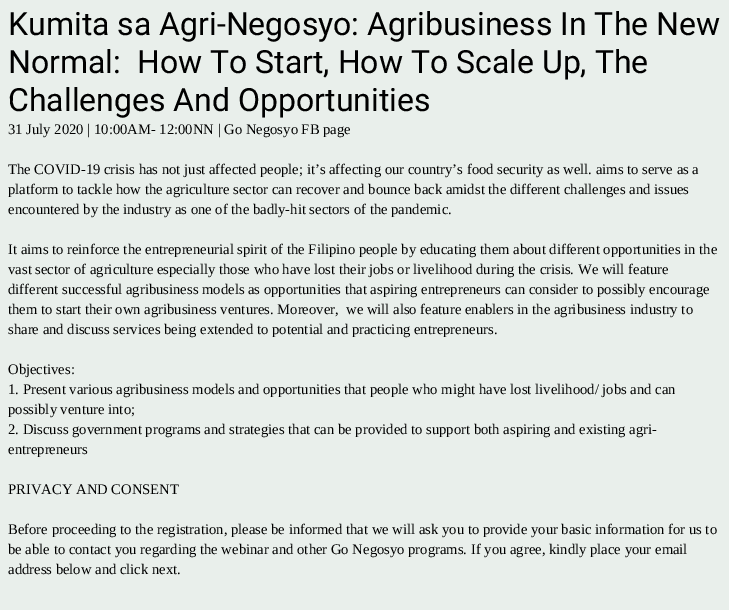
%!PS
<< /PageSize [729 610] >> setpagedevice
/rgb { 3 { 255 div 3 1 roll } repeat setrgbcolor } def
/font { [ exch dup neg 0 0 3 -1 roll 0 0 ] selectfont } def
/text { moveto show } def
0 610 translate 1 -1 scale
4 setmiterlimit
233 239 235 rgb
0 0 729 610 rectfill
/Roboto-Regular 32 font
0 0 0 rgb
(Kumita sa Agri-Negosyo: Agribusiness In The New) 8 35 text
(Normal:  How To Start, How To Scale Up, The) 8 73 text
(Challenges And Opportunities) 8 111 text
/LiberationSerif-Regular 14.65 font
(31 July 2020 | 10:00AM- 12:00NN | Go Negosyo FB page) 8 134 text
(The COVID-19 crisis has not just affected people; it’s affecting our country’s food security as well. aims to serve as a) 8 174 text
(platform to tackle how the agriculture sector can recover and bounce back amidst the different challenges and issues) 8 194 text
(encountered by the industry as one of the badly-hit sectors of the pandemic.) 8 214 text
(It aims to reinforce the entrepreneurial spirit of the Filipino people by educating them about different opportunities in the) 8 254 text
(vast sector of agriculture especially those who have lost their jobs or livelihood during the crisis. We will feature) 8 274 text
(different successful agribusiness models as opportunities that aspiring entrepreneurs can consider to possibly encourage) 8 294 text
(them to start their own agribusiness ventures. Moreover,  we will also feature enablers in the agribusiness industry to) 8 314 text
(share and discuss services being extended to potential and practicing entrepreneurs.) 8 334 text
(Objectives:) 8 374 text
(1. Present various agribusiness models and opportunities that people who might have lost livelihood/ jobs and can) 8 394 text
(possibly venture into;) 8 414 text
(2. Discuss government programs and strategies that can be provided to support both aspiring and existing agri-) 8 434 text
(entrepreneurs) 8 454 text
(PRIVACY AND CONSENT) 8 494 text
(Before proceeding to the registration, please be informed that we will ask you to provide your basic information for us to) 8 534 text
(be able to contact you regarding the webinar and other Go Negosyo programs. If you agree, kindly place your email) 8 554 text
(address below and click next.) 8 574 text
showpage
